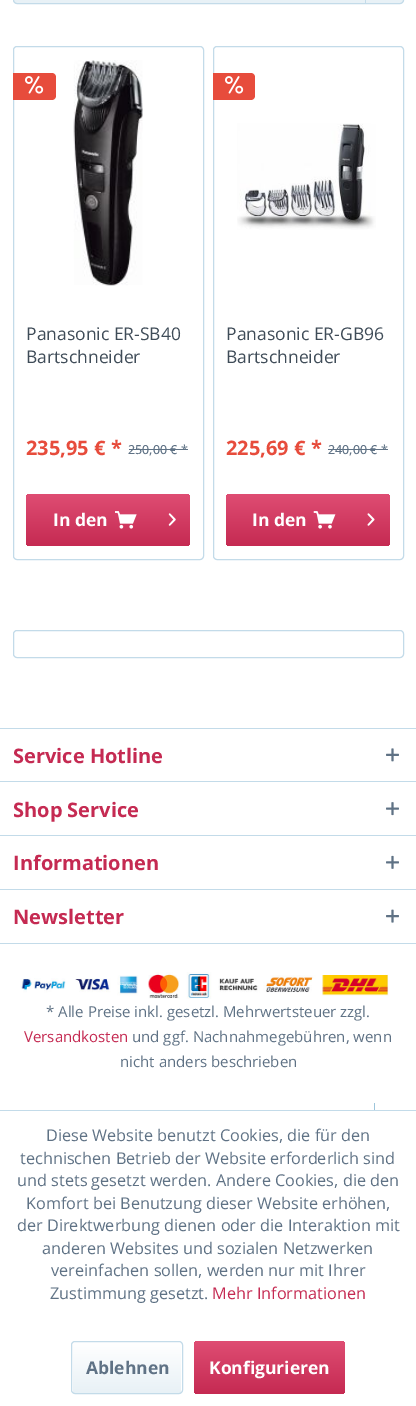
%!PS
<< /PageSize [416 1406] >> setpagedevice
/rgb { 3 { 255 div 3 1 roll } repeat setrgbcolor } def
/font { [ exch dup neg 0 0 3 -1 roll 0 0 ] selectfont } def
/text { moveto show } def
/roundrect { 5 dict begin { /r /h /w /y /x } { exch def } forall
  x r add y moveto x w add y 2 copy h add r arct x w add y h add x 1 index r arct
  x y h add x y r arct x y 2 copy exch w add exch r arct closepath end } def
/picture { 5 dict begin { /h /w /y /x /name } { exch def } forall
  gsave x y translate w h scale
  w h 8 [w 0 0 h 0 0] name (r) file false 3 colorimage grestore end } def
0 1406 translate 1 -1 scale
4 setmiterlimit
255 255 255 rgb
0 0 416 1406 rectfill
gsave 14 -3 389 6 2.5 roundrect clip newpath
<< /ShadingType 2 /ColorSpace /DeviceRGB /Coords [208 -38 208 2.5] /Extend [true true] /Function << /FunctionType 2 /Domain [0 1] /C0 [1 1 1] /C1 [0.91 0.945 0.965] /N 1 >> >> shfill grestore
195 219 233 rgb
13.5 -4.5 390 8 3.5 roundrect stroke
365 0 1 4 rectfill
13.5 46.5 190 513 3.5 roundrect stroke
231 76 60 rgb
13 73 moveto 39 0 rlineto 2 0 4 2 4 4 rcurveto 0 19 rlineto 0 2 -2 4 -4 4 rcurveto -39 0 rlineto closepath fill
(img_01.rgb) 25 76 19 18 picture
(img_02.rgb) 73 60 70 226 picture
95 114 133 rgb
129 449 59 1 rectfill
gsave 26 494 164 52 4 roundrect clip newpath
<< /ShadingType 2 /ColorSpace /DeviceRGB /Coords [108 494 108 546] /Extend [true true] /Function << /FunctionType 2 /Domain [0 1] /C0 [0.875 0.302 0.451] /C1 [0.773 0.165 0.322] /N 1 >> >> shfill grestore
(img_03.rgb) 115 511 22 18 picture
(img_04.rgb) 168 513 8 13 picture
195 219 233 rgb
213.5 46.5 190 513 3.5 roundrect stroke
231 76 60 rgb
213 73 moveto 38 0 rlineto 2 0 4 2 4 4 rcurveto 0 19 rlineto 0 2 -2 4 -4 4 rcurveto -38 0 rlineto closepath fill
(img_01.rgb) 225 76 19 18 picture
(img_05.rgb) 237 123 139 107 picture
95 114 133 rgb
328 449 60 1 rectfill
gsave 226 494 164 52 4 roundrect clip newpath
<< /ShadingType 2 /ColorSpace /DeviceRGB /Coords [308 494 308 546] /Extend [true true] /Function << /FunctionType 2 /Domain [0 1] /C0 [0.875 0.302 0.451] /C1 [0.773 0.165 0.322] /N 1 >> >> shfill grestore
(img_06.rgb) 313 511 23 18 picture
(img_07.rgb) 367 513 8 13 picture
195 219 233 rgb
13.5 630.5 390 27 3.5 roundrect stroke
0 728 416 1 rectfill
(img_08.rgb) 386 748 13 14 picture
0 781 416 1 rectfill
(img_09.rgb) 386 802 13 14 picture
0 835 416 1 rectfill
(img_10.rgb) 386 855 13 14 picture
0 889 416 1 rectfill
0 943 416 1 rectfill
(img_11.rgb) 386 909 13 14 picture
(img_12.rgb) 20 972 369 27 picture
157 197 219 rgb
374 1103 1 12 rectfill
255 255 255 rgb
374 1111 1 4 rectfill
195 219 233 rgb
0 1110 416 1 rectfill
gsave 73 1343 108 50 2.5 roundrect clip newpath
<< /ShadingType 2 /ColorSpace /DeviceRGB /Coords [127 1343 127 1393] /Extend [true true] /Function << /FunctionType 2 /Domain [0 1] /C0 [1 1 1] /C1 [0.91 0.945 0.965] /N 1 >> >> shfill grestore
71.5 1341.5 111 52 3.5 roundrect stroke
gsave 194 1341 151 53 4 roundrect clip newpath
<< /ShadingType 2 /ColorSpace /DeviceRGB /Coords [269 1341 269 1394] /Extend [true true] /Function << /FunctionType 2 /Domain [0 1] /C0 [0.875 0.302 0.451] /C1 [0.773 0.165 0.322] /N 1 >> >> shfill grestore
/OpenSans-Regular 17.5 font
63 76 88 rgb
(Panasonic ER-SB40) 26 340 text
(Bartschneider) 26 363 text
/OpenSans-Bold 20 font
231 76 60 rgb
(235,95 € *) 26 455 text
/OpenSans-Medium 12.5 font
95 114 133 rgb
(250,00 € *) 128 454 text
/OpenSans-Bold 17.5 font
255 255 255 rgb
(In den) 53 526 text
/OpenSans-Regular 17.5 font
63 76 88 rgb
(Panasonic ER-GB96) 226 340 text
(Bartschneider) 226 363 text
/OpenSans-Bold 20 font
231 76 60 rgb
(225,69 € *) 226 455 text
/OpenSans-Medium 12.5 font
95 114 133 rgb
(240,00 € *) 328 454 text
/OpenSans-Bold 17.5 font
255 255 255 rgb
(In den) 252 526 text
/OpenSans-Bold 20 font
197 42 82 rgb
(Service Hotline) 13 763 text
(Shop Service) 13 817 text
(Informationen) 13 870 text
(Newsletter) 13 924 text
/OpenSans-Regular 15 font
95 114 133 rgb
(* Alle Preise inkl. gesetzl. Mehrwertsteuer zzgl.) 46 1017 text
197 42 82 rgb
(Versandkosten) 24 1042 text
95 114 133 rgb
(und ggf. Nachnahmegebühren, wenn) 132 1042 text
(nicht anders beschrieben) 120 1067 text
/OpenSans-Regular 16.25 font
(Diese Website benutzt Cookies, die für den) 46 1141 text
(technischen Betrieb der Website erforderlich sind) 20 1164 text
(und stets gesetzt werden. Andere Cookies, die den) 17 1186 text
(Komfort bei Benutzung dieser Website erhöhen,) 26 1209 text
(der Direktwerbung dienen oder die Interaktion mit) 17 1231 text
(anderen Websites und sozialen Netzwerken) 42 1254 text
(vereinfachen sollen, werden nur mit Ihrer) 51 1276 text
(Zustimmung gesetzt.) 50 1299 text
197 42 82 rgb
(Mehr Informationen) 212 1299 text
/OpenSans-Bold 17.5 font
95 114 133 rgb
(Ablehnen) 86 1374 text
255 255 255 rgb
(Konfigurieren) 209 1374 text
showpage
